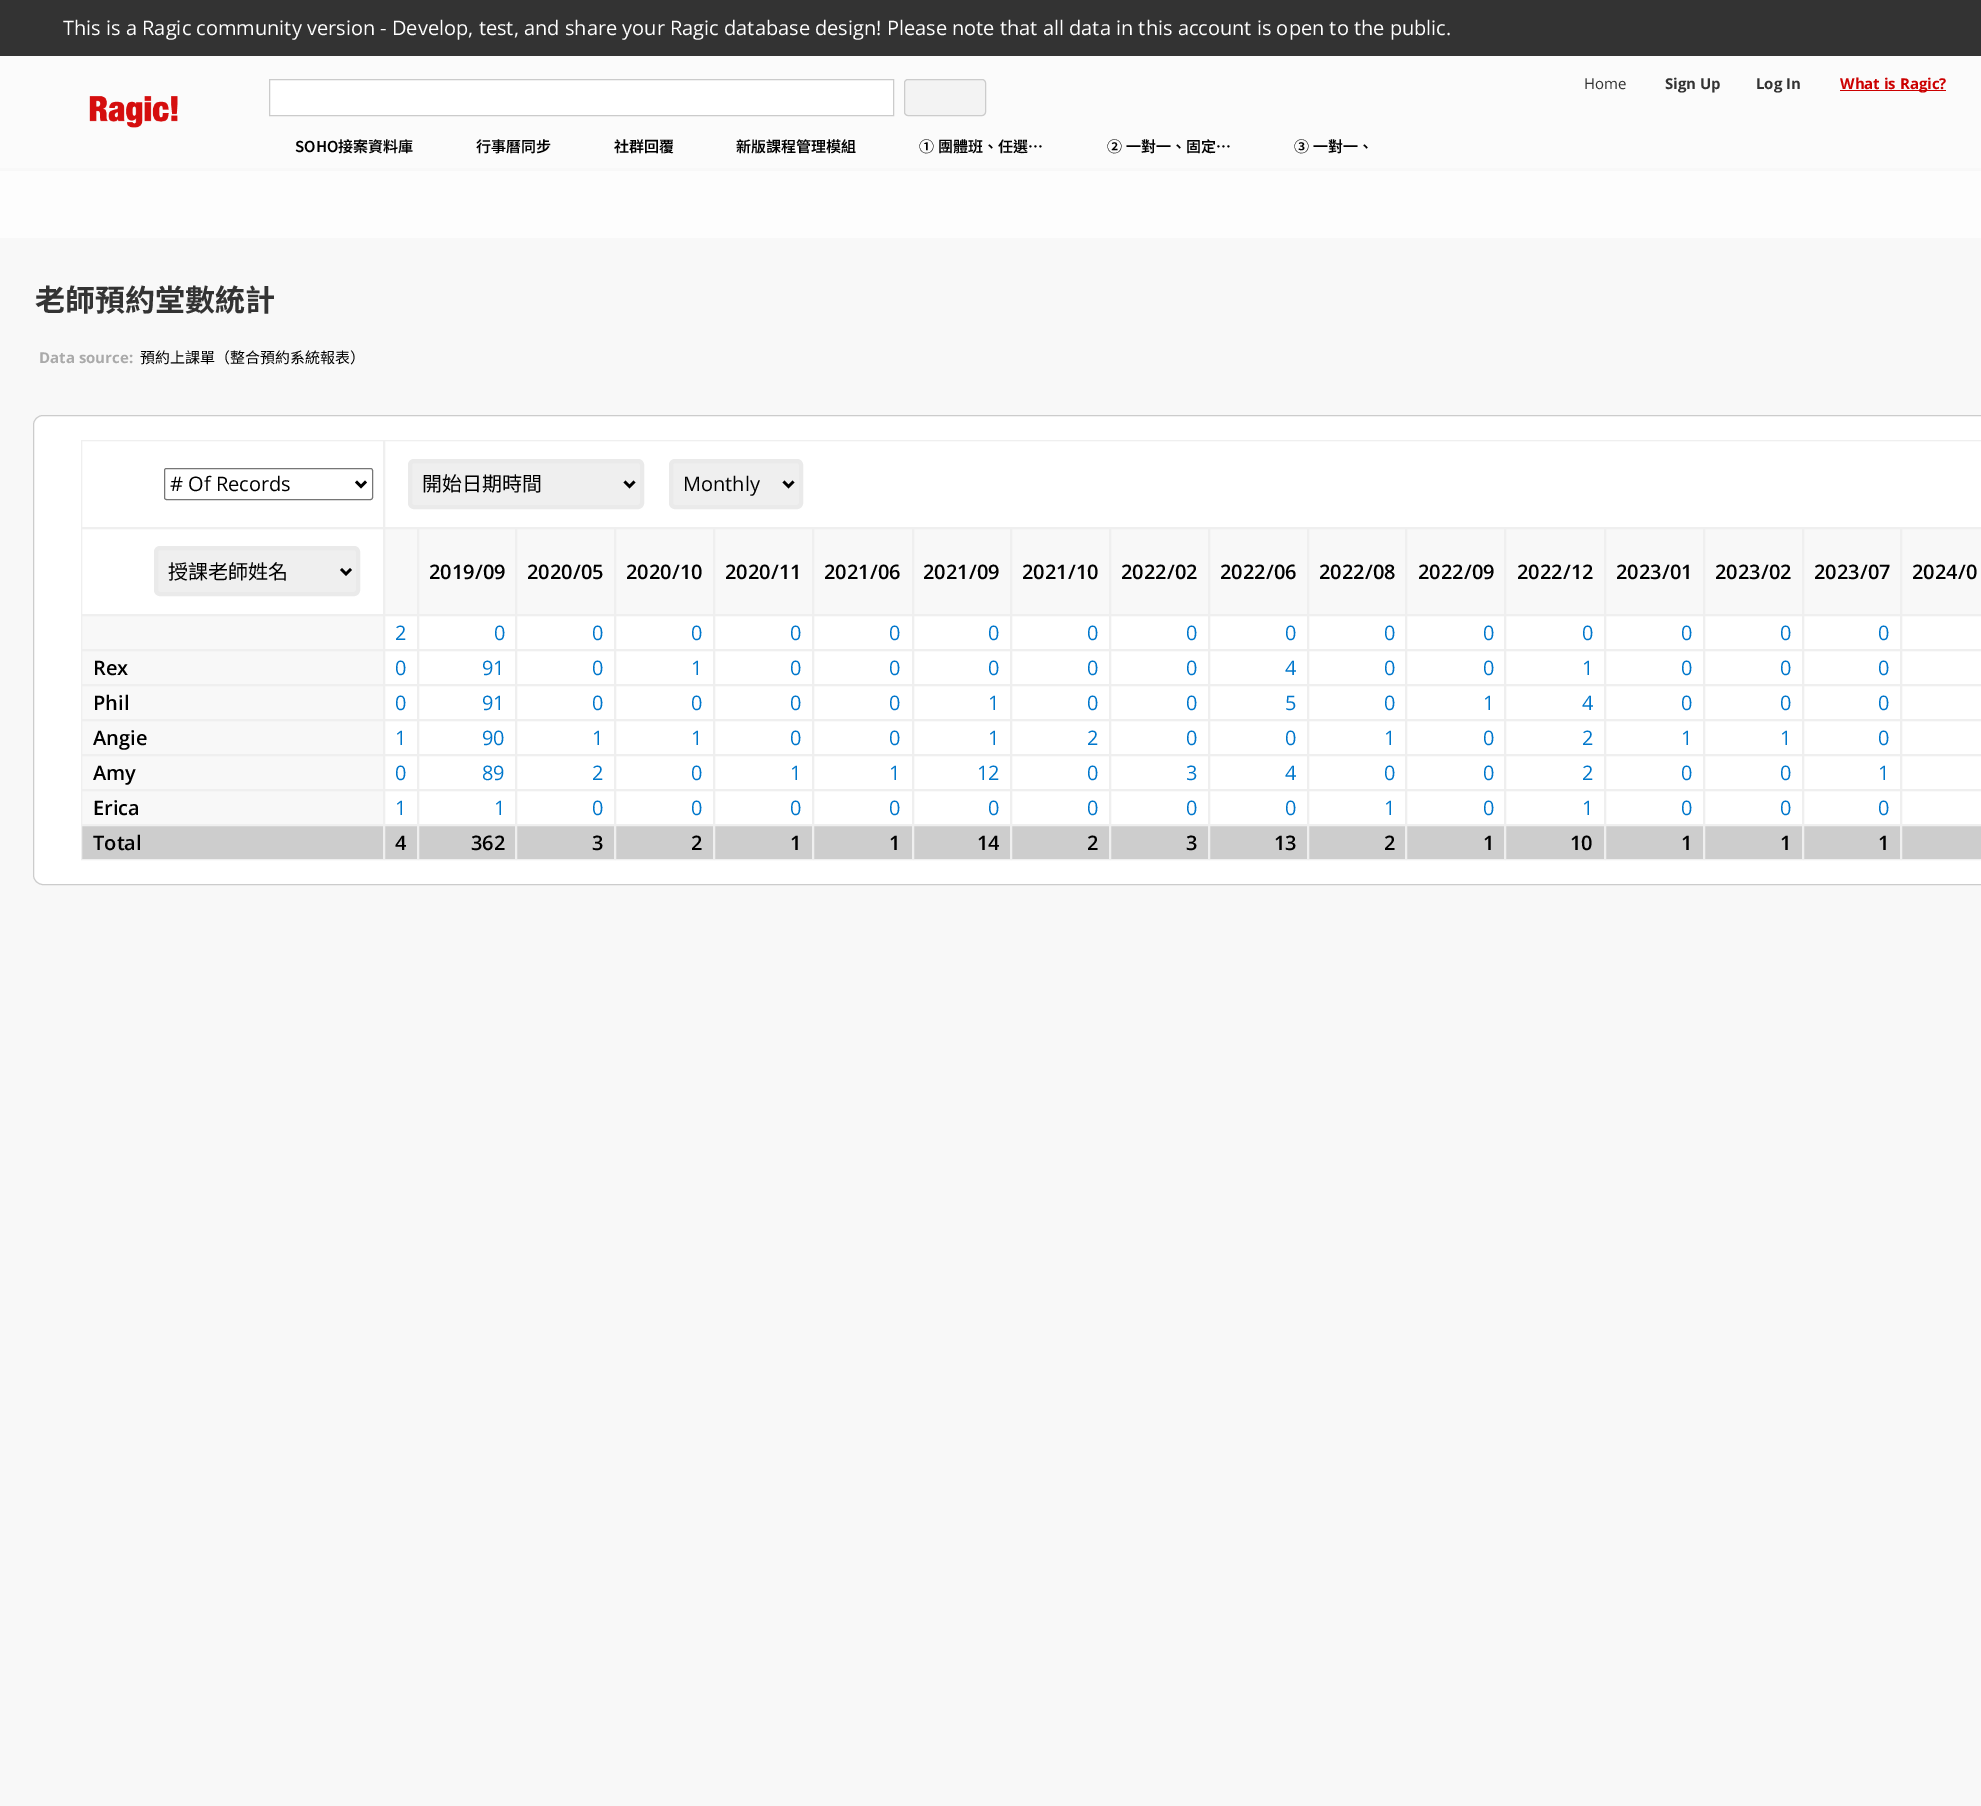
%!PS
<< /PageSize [1981 1806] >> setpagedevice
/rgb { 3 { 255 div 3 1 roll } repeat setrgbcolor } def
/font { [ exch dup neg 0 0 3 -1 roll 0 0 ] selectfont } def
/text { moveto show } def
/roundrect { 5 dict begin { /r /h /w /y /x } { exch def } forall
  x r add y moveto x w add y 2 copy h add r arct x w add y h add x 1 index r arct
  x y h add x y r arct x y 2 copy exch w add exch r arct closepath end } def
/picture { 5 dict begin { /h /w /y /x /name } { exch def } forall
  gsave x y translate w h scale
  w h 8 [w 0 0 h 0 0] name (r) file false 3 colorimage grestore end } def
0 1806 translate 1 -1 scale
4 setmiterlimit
248 248 248 rgb
0 0 1981 1806 rectfill
51 51 51 rgb
0 0 1981 56 rectfill
251 251 251 rgb
0 56 1981 112 rectfill
255 255 255 rgb
269.5 79.5 moveto 624 0 rlineto 0 36 rlineto -624 0 rlineto closepath gsave fill grestore
203 203 203 rgb
stroke
243 243 243 rgb
904.5 79.5 81 36 3.5 roundrect gsave fill grestore
204 204 204 rgb
stroke
204 0 0 rgb
1840 90 106 1 rectfill
(img_01.rgb) 89 96 89 32 picture
253 253 253 rgb
0 171 1981 67 rectfill
255 255 255 rgb
33.5 415.5 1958 469 9.5 roundrect gsave fill grestore
204 204 204 rgb
stroke
239 239 239 rgb
81.5 440.5 302 87 rectstroke
118 118 118 rgb
164.5 468.5 208 31 2 roundrect stroke
0 0 0 rgb
2.5 setlinewidth
356 481.5 moveto 5 5 rlineto 5 -5 rlineto stroke
239 239 239 rgb
1 setlinewidth
384.5 440.5 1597 87 rectstroke
410 461 232 46 4 roundrect gsave fill grestore
234 234 234 rgb
4 setlinewidth
stroke
0 0 0 rgb
2.5 setlinewidth
624.5 481.5 moveto 5 5 rlineto 5 -5 rlineto stroke
239 239 239 rgb
671 461 130 46 4 roundrect gsave fill grestore
234 234 234 rgb
4 setlinewidth
stroke
0 0 0 rgb
2.5 setlinewidth
783.5 481.5 moveto 5 5 rlineto 5 -5 rlineto stroke
239 239 239 rgb
1 setlinewidth
81.5 528.5 302 86 rectstroke
156 548 202 46 4 roundrect gsave fill grestore
234 234 234 rgb
4 setlinewidth
stroke
0 0 0 rgb
2.5 setlinewidth
341 569 moveto 5 5 rlineto 5 -5 rlineto stroke
248 248 248 rgb
384.5 528.5 moveto 33 0 rlineto 0 86 rlineto -33 0 rlineto closepath gsave fill grestore
239 239 239 rgb
1 setlinewidth
stroke
248 248 248 rgb
418.5 528.5 moveto 97 0 rlineto 0 86 rlineto -97 0 rlineto closepath gsave fill grestore
239 239 239 rgb
stroke
248 248 248 rgb
516.5 528.5 moveto 98 0 rlineto 0 86 rlineto -98 0 rlineto closepath gsave fill grestore
239 239 239 rgb
stroke
248 248 248 rgb
615.5 528.5 moveto 98 0 rlineto 0 86 rlineto -98 0 rlineto closepath gsave fill grestore
239 239 239 rgb
stroke
248 248 248 rgb
714.5 528.5 moveto 98 0 rlineto 0 86 rlineto -98 0 rlineto closepath gsave fill grestore
239 239 239 rgb
stroke
248 248 248 rgb
813.5 528.5 moveto 99 0 rlineto 0 86 rlineto -99 0 rlineto closepath gsave fill grestore
239 239 239 rgb
stroke
248 248 248 rgb
913.5 528.5 moveto 97 0 rlineto 0 86 rlineto -97 0 rlineto closepath gsave fill grestore
239 239 239 rgb
stroke
248 248 248 rgb
1011.5 528.5 moveto 98 0 rlineto 0 86 rlineto -98 0 rlineto closepath gsave fill grestore
239 239 239 rgb
stroke
248 248 248 rgb
1110.5 528.5 moveto 98 0 rlineto 0 86 rlineto -98 0 rlineto closepath gsave fill grestore
239 239 239 rgb
stroke
248 248 248 rgb
1209.5 528.5 moveto 98 0 rlineto 0 86 rlineto -98 0 rlineto closepath gsave fill grestore
239 239 239 rgb
stroke
248 248 248 rgb
1308.5 528.5 moveto 97 0 rlineto 0 86 rlineto -97 0 rlineto closepath gsave fill grestore
239 239 239 rgb
stroke
248 248 248 rgb
1406.5 528.5 moveto 98 0 rlineto 0 86 rlineto -98 0 rlineto closepath gsave fill grestore
239 239 239 rgb
stroke
248 248 248 rgb
1505.5 528.5 moveto 99 0 rlineto 0 86 rlineto -99 0 rlineto closepath gsave fill grestore
239 239 239 rgb
stroke
248 248 248 rgb
1605.5 528.5 moveto 98 0 rlineto 0 86 rlineto -98 0 rlineto closepath gsave fill grestore
239 239 239 rgb
stroke
248 248 248 rgb
1704.5 528.5 moveto 98 0 rlineto 0 86 rlineto -98 0 rlineto closepath gsave fill grestore
239 239 239 rgb
stroke
248 248 248 rgb
1803.5 528.5 moveto 97 0 rlineto 0 86 rlineto -97 0 rlineto closepath gsave fill grestore
239 239 239 rgb
stroke
248 248 248 rgb
1901.5 528.5 moveto 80 0 rlineto 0 86 rlineto -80 0 rlineto closepath gsave fill grestore
239 239 239 rgb
stroke
248 248 248 rgb
81.5 615.5 moveto 302 0 rlineto 0 34 rlineto -302 0 rlineto closepath gsave fill grestore
239 239 239 rgb
stroke
384.5 615.5 33 34 rectstroke
418.5 615.5 97 34 rectstroke
516.5 615.5 98 34 rectstroke
615.5 615.5 98 34 rectstroke
714.5 615.5 98 34 rectstroke
813.5 615.5 99 34 rectstroke
913.5 615.5 97 34 rectstroke
1011.5 615.5 98 34 rectstroke
1110.5 615.5 98 34 rectstroke
1209.5 615.5 98 34 rectstroke
1308.5 615.5 97 34 rectstroke
1406.5 615.5 98 34 rectstroke
1505.5 615.5 99 34 rectstroke
1605.5 615.5 98 34 rectstroke
1704.5 615.5 98 34 rectstroke
1803.5 615.5 97 34 rectstroke
1901.5 615.5 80 34 rectstroke
248 248 248 rgb
81.5 650.5 moveto 302 0 rlineto 0 34 rlineto -302 0 rlineto closepath gsave fill grestore
239 239 239 rgb
stroke
384.5 650.5 33 34 rectstroke
418.5 650.5 97 34 rectstroke
516.5 650.5 98 34 rectstroke
615.5 650.5 98 34 rectstroke
714.5 650.5 98 34 rectstroke
813.5 650.5 99 34 rectstroke
913.5 650.5 97 34 rectstroke
1011.5 650.5 98 34 rectstroke
1110.5 650.5 98 34 rectstroke
1209.5 650.5 98 34 rectstroke
1308.5 650.5 97 34 rectstroke
1406.5 650.5 98 34 rectstroke
1505.5 650.5 99 34 rectstroke
1605.5 650.5 98 34 rectstroke
1704.5 650.5 98 34 rectstroke
1803.5 650.5 97 34 rectstroke
1901.5 650.5 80 34 rectstroke
248 248 248 rgb
81.5 685.5 moveto 302 0 rlineto 0 34 rlineto -302 0 rlineto closepath gsave fill grestore
239 239 239 rgb
stroke
384.5 685.5 33 34 rectstroke
418.5 685.5 97 34 rectstroke
516.5 685.5 98 34 rectstroke
615.5 685.5 98 34 rectstroke
714.5 685.5 98 34 rectstroke
813.5 685.5 99 34 rectstroke
913.5 685.5 97 34 rectstroke
1011.5 685.5 98 34 rectstroke
1110.5 685.5 98 34 rectstroke
1209.5 685.5 98 34 rectstroke
1308.5 685.5 97 34 rectstroke
1406.5 685.5 98 34 rectstroke
1505.5 685.5 99 34 rectstroke
1605.5 685.5 98 34 rectstroke
1704.5 685.5 98 34 rectstroke
1803.5 685.5 97 34 rectstroke
1901.5 685.5 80 34 rectstroke
248 248 248 rgb
81.5 720.5 moveto 302 0 rlineto 0 34 rlineto -302 0 rlineto closepath gsave fill grestore
239 239 239 rgb
stroke
384.5 720.5 33 34 rectstroke
418.5 720.5 97 34 rectstroke
516.5 720.5 98 34 rectstroke
615.5 720.5 98 34 rectstroke
714.5 720.5 98 34 rectstroke
813.5 720.5 99 34 rectstroke
913.5 720.5 97 34 rectstroke
1011.5 720.5 98 34 rectstroke
1110.5 720.5 98 34 rectstroke
1209.5 720.5 98 34 rectstroke
1308.5 720.5 97 34 rectstroke
1406.5 720.5 98 34 rectstroke
1505.5 720.5 99 34 rectstroke
1605.5 720.5 98 34 rectstroke
1704.5 720.5 98 34 rectstroke
1803.5 720.5 97 34 rectstroke
1901.5 720.5 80 34 rectstroke
248 248 248 rgb
81.5 755.5 moveto 302 0 rlineto 0 34 rlineto -302 0 rlineto closepath gsave fill grestore
239 239 239 rgb
stroke
384.5 755.5 33 34 rectstroke
418.5 755.5 97 34 rectstroke
516.5 755.5 98 34 rectstroke
615.5 755.5 98 34 rectstroke
714.5 755.5 98 34 rectstroke
813.5 755.5 99 34 rectstroke
913.5 755.5 97 34 rectstroke
1011.5 755.5 98 34 rectstroke
1110.5 755.5 98 34 rectstroke
1209.5 755.5 98 34 rectstroke
1308.5 755.5 97 34 rectstroke
1406.5 755.5 98 34 rectstroke
1505.5 755.5 99 34 rectstroke
1605.5 755.5 98 34 rectstroke
1704.5 755.5 98 34 rectstroke
1803.5 755.5 97 34 rectstroke
1901.5 755.5 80 34 rectstroke
248 248 248 rgb
81.5 790.5 moveto 302 0 rlineto 0 34 rlineto -302 0 rlineto closepath gsave fill grestore
239 239 239 rgb
stroke
384.5 790.5 33 34 rectstroke
418.5 790.5 97 34 rectstroke
516.5 790.5 98 34 rectstroke
615.5 790.5 98 34 rectstroke
714.5 790.5 98 34 rectstroke
813.5 790.5 99 34 rectstroke
913.5 790.5 97 34 rectstroke
1011.5 790.5 98 34 rectstroke
1110.5 790.5 98 34 rectstroke
1209.5 790.5 98 34 rectstroke
1308.5 790.5 97 34 rectstroke
1406.5 790.5 98 34 rectstroke
1505.5 790.5 99 34 rectstroke
1605.5 790.5 98 34 rectstroke
1704.5 790.5 98 34 rectstroke
1803.5 790.5 97 34 rectstroke
1901.5 790.5 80 34 rectstroke
205 205 205 rgb
81.5 825.5 moveto 302 0 rlineto 0 34 rlineto -302 0 rlineto closepath gsave fill grestore
239 239 239 rgb
stroke
205 205 205 rgb
384.5 825.5 moveto 33 0 rlineto 0 34 rlineto -33 0 rlineto closepath gsave fill grestore
239 239 239 rgb
stroke
205 205 205 rgb
418.5 825.5 moveto 97 0 rlineto 0 34 rlineto -97 0 rlineto closepath gsave fill grestore
239 239 239 rgb
stroke
205 205 205 rgb
516.5 825.5 moveto 98 0 rlineto 0 34 rlineto -98 0 rlineto closepath gsave fill grestore
239 239 239 rgb
stroke
205 205 205 rgb
615.5 825.5 moveto 98 0 rlineto 0 34 rlineto -98 0 rlineto closepath gsave fill grestore
239 239 239 rgb
stroke
205 205 205 rgb
714.5 825.5 moveto 98 0 rlineto 0 34 rlineto -98 0 rlineto closepath gsave fill grestore
239 239 239 rgb
stroke
205 205 205 rgb
813.5 825.5 moveto 99 0 rlineto 0 34 rlineto -99 0 rlineto closepath gsave fill grestore
239 239 239 rgb
stroke
205 205 205 rgb
913.5 825.5 moveto 97 0 rlineto 0 34 rlineto -97 0 rlineto closepath gsave fill grestore
239 239 239 rgb
stroke
205 205 205 rgb
1011.5 825.5 moveto 98 0 rlineto 0 34 rlineto -98 0 rlineto closepath gsave fill grestore
239 239 239 rgb
stroke
205 205 205 rgb
1110.5 825.5 moveto 98 0 rlineto 0 34 rlineto -98 0 rlineto closepath gsave fill grestore
239 239 239 rgb
stroke
205 205 205 rgb
1209.5 825.5 moveto 98 0 rlineto 0 34 rlineto -98 0 rlineto closepath gsave fill grestore
239 239 239 rgb
stroke
205 205 205 rgb
1308.5 825.5 moveto 97 0 rlineto 0 34 rlineto -97 0 rlineto closepath gsave fill grestore
239 239 239 rgb
stroke
205 205 205 rgb
1406.5 825.5 moveto 98 0 rlineto 0 34 rlineto -98 0 rlineto closepath gsave fill grestore
239 239 239 rgb
stroke
205 205 205 rgb
1505.5 825.5 moveto 99 0 rlineto 0 34 rlineto -99 0 rlineto closepath gsave fill grestore
239 239 239 rgb
stroke
205 205 205 rgb
1605.5 825.5 moveto 98 0 rlineto 0 34 rlineto -98 0 rlineto closepath gsave fill grestore
239 239 239 rgb
stroke
205 205 205 rgb
1704.5 825.5 moveto 98 0 rlineto 0 34 rlineto -98 0 rlineto closepath gsave fill grestore
239 239 239 rgb
stroke
205 205 205 rgb
1803.5 825.5 moveto 97 0 rlineto 0 34 rlineto -97 0 rlineto closepath gsave fill grestore
239 239 239 rgb
stroke
205 205 205 rgb
1901.5 825.5 moveto 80 0 rlineto 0 34 rlineto -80 0 rlineto closepath gsave fill grestore
239 239 239 rgb
stroke
/OpenSans-Regular 20 font
254 254 254 rgb
(This is a Ragic community version - Develop, test, and share your Ragic database design! Please note that all data in this account is open to the public.) 63 35 text
/OpenSans-Regular 15 font
51 51 51 rgb
(Home) 1584 89 text
/OpenSans-Bold 15 font
(Sign Up) 1665 89 text
(Log In) 1756 89 text
204 0 0 rgb
(What is Ragic?) 1840 89 text
/NotoSansTC-SemiBold 15 font
0 0 0 rgb
(SOHO接案資料庫) 295 152 text
(行事曆同步) 476 152 text
(社群回覆) 614 152 text
(新版課程管理模組) 736 152 text
919 152 moveto 1 0 32 (① 團體班、任選…) widthshow
1107 152 moveto 1 0 32 (② 一對一、固定…) widthshow
1294 152 moveto 1 0 32 (③ 一對一、) widthshow
/NotoSansTC-Bold 30 font
51 51 51 rgb
(老師預約堂數統計) 35 311 text
/OpenSans-Bold 15 font
170 170 170 rgb
(Data source:) 39 363 text
/NotoSansTC-Regular 15 font
0 0 0 rgb
(預約上課單（整合預約系統報表）) 140 363 text
/OpenSans-Regular 20 font
(# Of Records) 170 491 text
/NotoSansTC-Regular 20 font
(開始日期時間) 422 491 text
/OpenSans-Regular 20 font
(Monthly) 683 491 text
/NotoSansTC-Regular 20 font
(授課老師姓名) 168 579 text
/OpenSans-SemiBold 20 font
(2019/09) 429 579 text
(2020/05) 527 579 text
(2020/10) 626 579 text
(2020/11) 725 579 text
(2021/06) 824 579 text
(2021/09) 923 579 text
(2021/10) 1022 579 text
(2022/02) 1121 579 text
(2022/06) 1220 579 text
(2022/08) 1319 579 text
(2022/09) 1418 579 text
(2022/12) 1517 579 text
(2023/01) 1616 579 text
(2023/02) 1715 579 text
(2023/07) 1814 579 text
(2024/0) 1912 579 text
/OpenSans-Regular 20 font
0 119 204 rgb
(2) 395 640 text
(0) 494 640 text
(0) 592 640 text
(0) 691 640 text
(0) 790 640 text
(0) 889 640 text
(0) 988 640 text
(0) 1087 640 text
(0) 1186 640 text
(0) 1285 640 text
(0) 1384 640 text
(0) 1483 640 text
(0) 1582 640 text
(0) 1681 640 text
(0) 1780 640 text
(0) 1878 640 text
/OpenSans-SemiBold 20 font
0 0 0 rgb
(Rex) 93 675 text
/OpenSans-Regular 20 font
0 119 204 rgb
(0) 395 675 text
(91) 482 675 text
(0) 592 675 text
(1) 691 675 text
(0) 790 675 text
(0) 889 675 text
(0) 988 675 text
(0) 1087 675 text
(0) 1186 675 text
(4) 1285 675 text
(0) 1384 675 text
(0) 1483 675 text
(1) 1582 675 text
(0) 1681 675 text
(0) 1780 675 text
(0) 1878 675 text
/OpenSans-SemiBold 20 font
0 0 0 rgb
(Phil) 93 710 text
/OpenSans-Regular 20 font
0 119 204 rgb
(0) 395 710 text
(91) 482 710 text
(0) 592 710 text
(0) 691 710 text
(0) 790 710 text
(0) 889 710 text
(1) 988 710 text
(0) 1087 710 text
(0) 1186 710 text
(5) 1285 710 text
(0) 1384 710 text
(1) 1483 710 text
(4) 1582 710 text
(0) 1681 710 text
(0) 1780 710 text
(0) 1878 710 text
/OpenSans-SemiBold 20 font
0 0 0 rgb
(Angie) 93 745 text
/OpenSans-Regular 20 font
0 119 204 rgb
(1) 395 745 text
(90) 482 745 text
(1) 592 745 text
(1) 691 745 text
(0) 790 745 text
(0) 889 745 text
(1) 988 745 text
(2) 1087 745 text
(0) 1186 745 text
(0) 1285 745 text
(1) 1384 745 text
(0) 1483 745 text
(2) 1582 745 text
(1) 1681 745 text
(1) 1780 745 text
(0) 1878 745 text
/OpenSans-SemiBold 20 font
0 0 0 rgb
(Amy) 93 780 text
/OpenSans-Regular 20 font
0 119 204 rgb
(0) 395 780 text
(89) 482 780 text
(2) 592 780 text
(0) 691 780 text
(1) 790 780 text
(1) 889 780 text
(12) 977 780 text
(0) 1087 780 text
(3) 1186 780 text
(4) 1285 780 text
(0) 1384 780 text
(0) 1483 780 text
(2) 1582 780 text
(0) 1681 780 text
(0) 1780 780 text
(1) 1878 780 text
/OpenSans-SemiBold 20 font
0 0 0 rgb
(Erica) 93 815 text
/OpenSans-Regular 20 font
0 119 204 rgb
(1) 395 815 text
(1) 494 815 text
(0) 592 815 text
(0) 691 815 text
(0) 790 815 text
(0) 889 815 text
(0) 988 815 text
(0) 1087 815 text
(0) 1186 815 text
(0) 1285 815 text
(1) 1384 815 text
(0) 1483 815 text
(1) 1582 815 text
(0) 1681 815 text
(0) 1780 815 text
(0) 1878 815 text
/OpenSans-SemiBold 20 font
0 0 0 rgb
(Total) 93 850 text
(4) 395 850 text
(362) 471 850 text
(3) 592 850 text
(2) 691 850 text
(1) 790 850 text
(1) 889 850 text
(14) 977 850 text
(2) 1087 850 text
(3) 1186 850 text
(13) 1274 850 text
(2) 1384 850 text
(1) 1483 850 text
(10) 1570 850 text
(1) 1681 850 text
(1) 1780 850 text
(1) 1878 850 text
showpage
